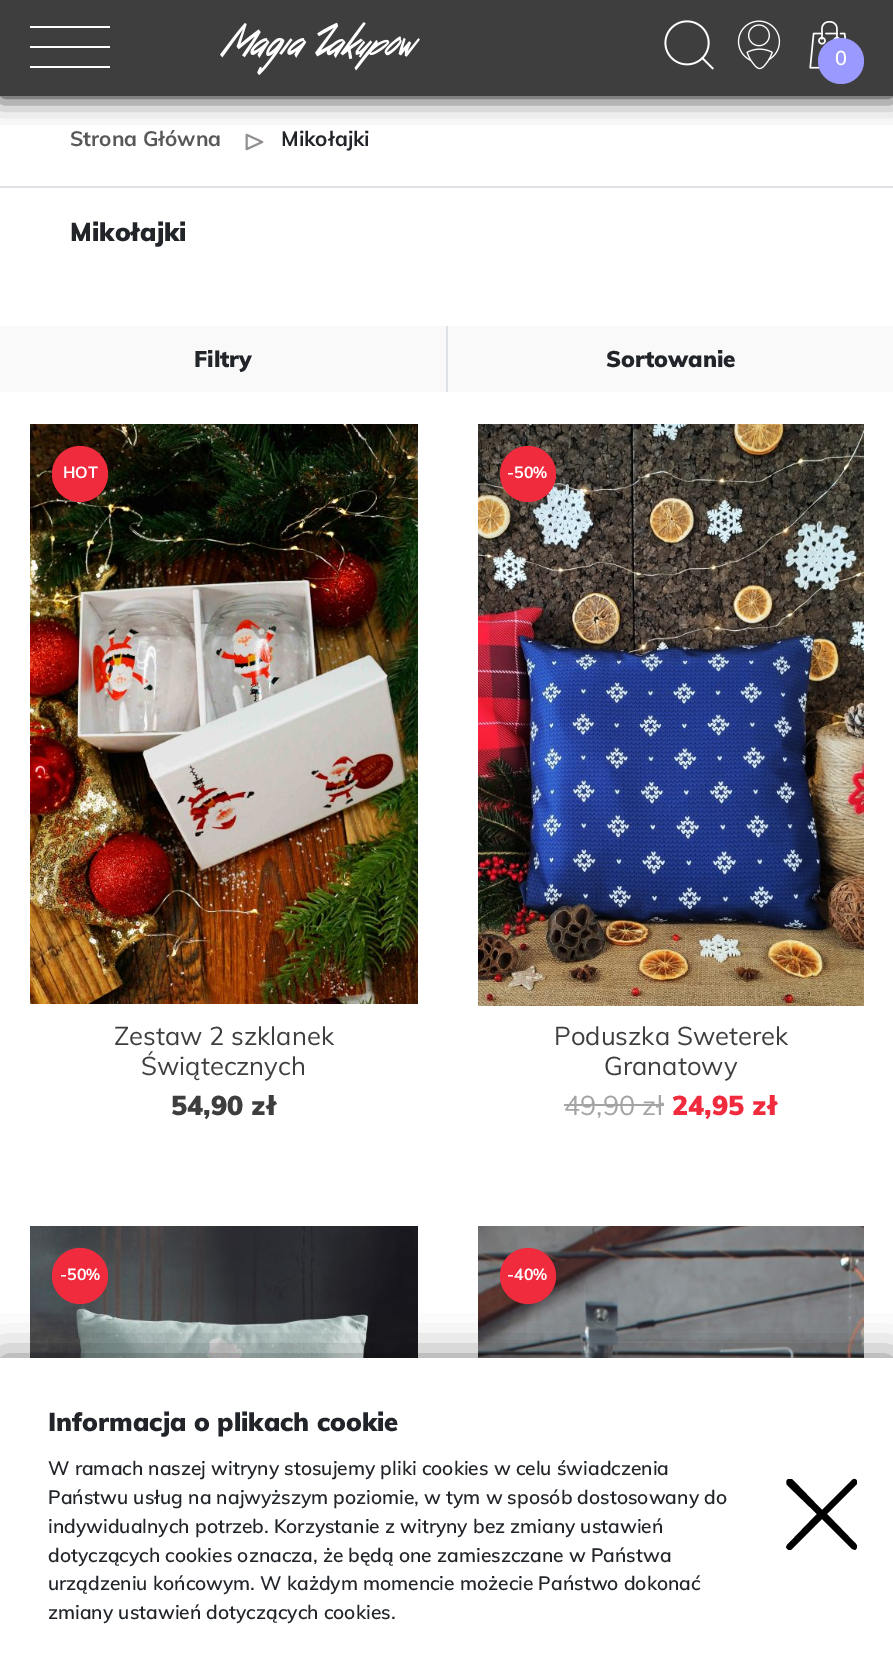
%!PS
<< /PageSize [893 1674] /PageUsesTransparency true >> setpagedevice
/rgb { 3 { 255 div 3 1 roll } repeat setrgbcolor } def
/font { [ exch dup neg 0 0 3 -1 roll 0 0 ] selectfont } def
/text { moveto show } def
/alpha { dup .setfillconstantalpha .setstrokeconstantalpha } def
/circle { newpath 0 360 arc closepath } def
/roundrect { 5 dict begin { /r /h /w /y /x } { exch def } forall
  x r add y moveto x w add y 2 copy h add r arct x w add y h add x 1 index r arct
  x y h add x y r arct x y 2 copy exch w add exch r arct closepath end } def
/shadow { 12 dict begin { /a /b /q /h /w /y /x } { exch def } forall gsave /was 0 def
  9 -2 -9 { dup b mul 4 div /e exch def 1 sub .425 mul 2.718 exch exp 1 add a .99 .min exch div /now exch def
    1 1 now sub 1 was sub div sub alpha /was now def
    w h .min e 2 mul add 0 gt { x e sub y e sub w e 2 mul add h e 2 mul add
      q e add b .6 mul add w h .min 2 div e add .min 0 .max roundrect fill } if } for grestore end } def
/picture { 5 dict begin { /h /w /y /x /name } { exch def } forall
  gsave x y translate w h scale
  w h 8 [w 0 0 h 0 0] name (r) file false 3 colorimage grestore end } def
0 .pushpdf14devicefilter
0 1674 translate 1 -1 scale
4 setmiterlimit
255 255 255 rgb
0 0 893 1674 rectfill
(img_05.rgb) 245 133 19 18 picture
0 0 0 rgb
0 0 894 96 0 13 1 shadow
62 62 62 rgb
0 0 893 96 rectfill
255 255 255 rgb
30 26 80 2 rectfill
30 46 80 2 rectfill
30 66 80 2 rectfill
(img_01.rgb) 220 22 200 53 picture
(img_02.rgb) 664 20 50 50 picture
(img_03.rgb) 737 20 44 50 picture
(img_04.rgb) 809 21 38 48 picture
153 153 255 rgb
841 61 23 circle fill
222 226 230 rgb
0 186 893 2 rectfill
249 249 249 rgb
0 326 446 66 rectfill
222 226 230 rgb
446 326 2 66 rectfill
249 249 249 rgb
448 326 445 66 rectfill
(img_06.rgb) 30 424 388 580 picture
241 43 62 rgb
80 474 28 circle fill
(img_07.rgb) 478 424 386 582 picture
528 474 28 circle fill
164 164 164 rgb
564 1104 100 2 rectfill
(img_08.rgb) 30 1226 388 132 picture
241 43 62 rgb
80 1276 28 circle fill
(img_09.rgb) 478 1226 386 132 picture
528 1276 28 circle fill
0 0 0 rgb
0 1358 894 316 0 20 0.5 shadow
255 255 255 rgb
0 1358 893 316 rectfill
0 0 0 rgb
817 1514 moveto -30 31 rlineto -1 2 rlineto 1 3 4 4 6 2 rcurveto 30 -30 rlineto 30 30 rlineto 3 1 rlineto 2 -1 3 -4 1 -6 rcurveto -29 -30 rlineto 30 -30 rlineto 0 -2 rlineto 0 -3 -3 -4 -5 -2 rcurveto -30 30 rlineto -30 -31 rlineto -3 0 rlineto -3 0 -3 4 -2 6 rcurveto closepath eofill
/Muli-SemiBold 20 font
255 255 255 rgb
(0) 835 65 text
/Muli-Bold 20.75 font
88 88 88 rgb
(Strona Główna) 70 146 text
33 37 41 rgb
(Mikołajki) 281 146 text
/Muli-Black 25.6 font
(Mikołajki) 70 241 text
/Muli-Black 22.5 font
(Filtry) 194 367 text
(Sortowanie) 606 367 text
/Muli-Bold 16 font
255 255 255 rgb
(HOT) 63 478 text
/Muli-Regular 25.6 font
62 62 62 rgb
(Zestaw 2 szklanek) 114 1045 text
(Świątecznych) 141 1075 text
/Muli-Black 27 font
(54,90 zł) 171 1115 text
/Muli-Bold 16 font
255 255 255 rgb
(-50%) 507 478 text
/Muli-Regular 25.6 font
62 62 62 rgb
(Poduszka Sweterek) 554 1045 text
(Granatowy) 604 1075 text
/Muli-Regular 27 font
164 164 164 rgb
(49,90 zł) 564 1115 text
/Muli-Black 27 font
241 43 62 rgb
(24,95 zł) 672 1115 text
/Muli-Bold 16 font
255 255 255 rgb
(-50%) 60 1280 text
(-40%) 507 1280 text
/Muli-Black 25.6 font
33 37 41 rgb
(Informacja o plikach cookie) 48 1431 text
/Muli-SemiBold 19.2 font
(W ramach naszej witryny stosujemy pliki cookies w celu świadczenia) 48 1475 text
(Państwu usług na najwyższym poziomie, w tym w sposób dostosowany do) 48 1504 text
(indywidualnych potrzeb. Korzystanie z witryny bez zmiany ustawień) 48 1533 text
(dotyczących cookies oznacza, że będą one zamieszczane w Państwa) 48 1562 text
(urządzeniu końcowym. W każdym momencie możecie Państwo dokonać) 48 1590 text
(zmiany ustawień dotyczących cookies.) 48 1619 text
.poppdf14devicefilter showpage
